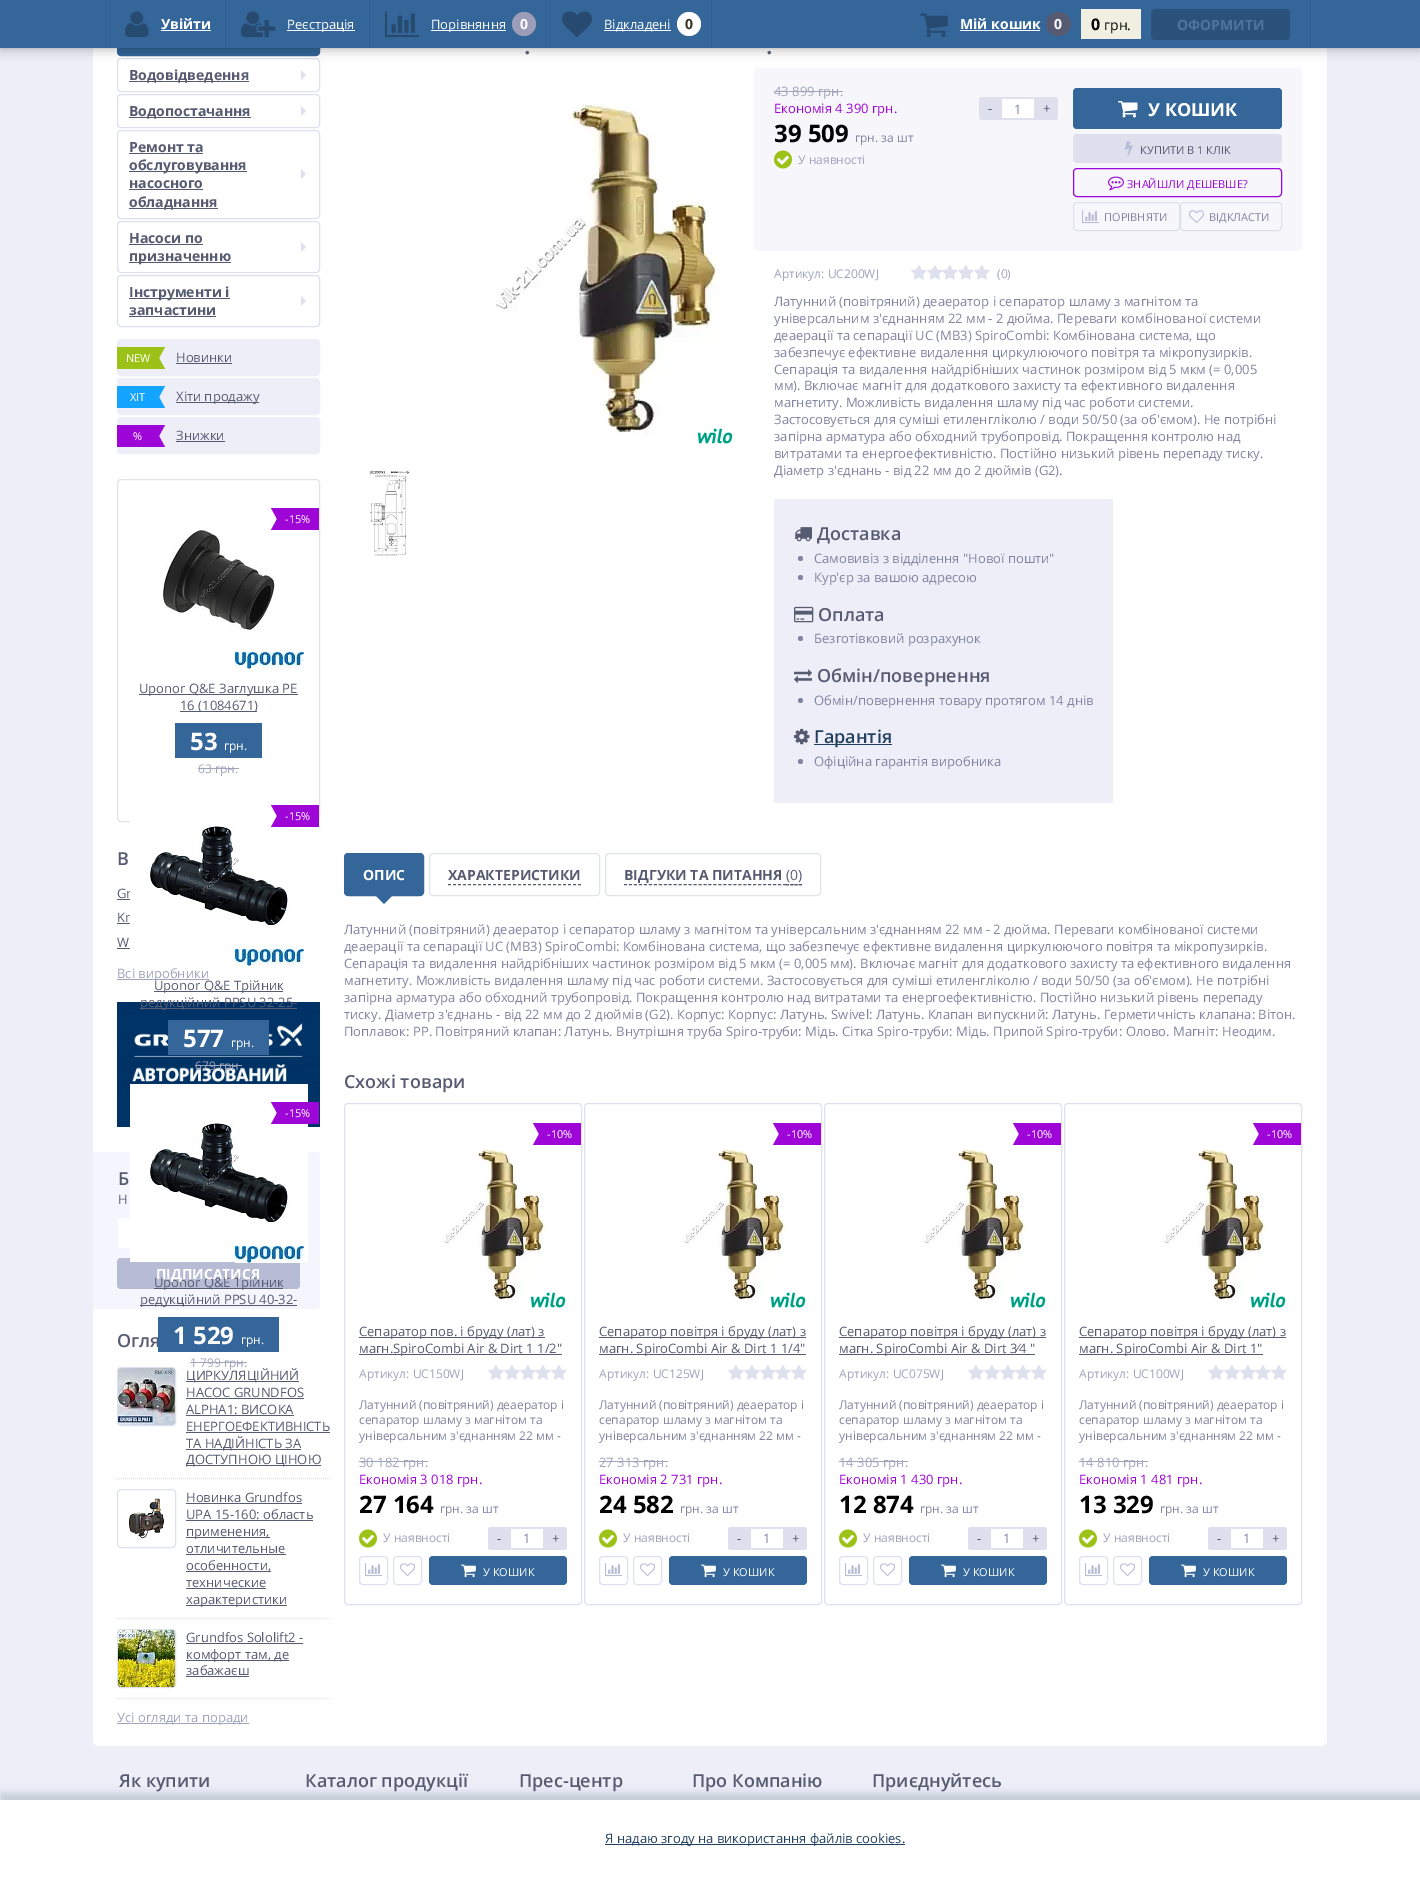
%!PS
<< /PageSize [1420 1877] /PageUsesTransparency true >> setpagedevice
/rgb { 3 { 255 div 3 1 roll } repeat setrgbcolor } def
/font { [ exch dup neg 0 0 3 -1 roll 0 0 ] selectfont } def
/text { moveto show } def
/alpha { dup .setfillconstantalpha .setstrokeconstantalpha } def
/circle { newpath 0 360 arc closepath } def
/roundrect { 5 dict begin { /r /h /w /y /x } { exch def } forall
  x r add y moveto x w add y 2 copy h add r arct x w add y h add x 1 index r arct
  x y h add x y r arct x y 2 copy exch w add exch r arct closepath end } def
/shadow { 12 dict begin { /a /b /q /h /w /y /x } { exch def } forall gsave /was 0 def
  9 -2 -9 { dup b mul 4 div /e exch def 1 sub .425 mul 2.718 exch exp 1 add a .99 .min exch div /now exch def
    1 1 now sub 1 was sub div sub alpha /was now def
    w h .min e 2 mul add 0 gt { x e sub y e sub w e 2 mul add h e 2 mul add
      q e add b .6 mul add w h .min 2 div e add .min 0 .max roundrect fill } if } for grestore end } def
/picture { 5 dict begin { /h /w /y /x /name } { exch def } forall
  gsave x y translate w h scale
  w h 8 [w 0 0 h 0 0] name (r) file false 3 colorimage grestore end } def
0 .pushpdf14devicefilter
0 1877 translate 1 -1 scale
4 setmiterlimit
237 238 248 rgb
0 0 1420 1877 rectfill
255 255 255 rgb
93 -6 moveto 1234 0 rlineto 0 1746 rlineto 0 3.5 -2.5 6 -6 6 rcurveto -1222 0 rlineto -3.5 0 -6 -2.5 -6 -6 rcurveto closepath fill
52 102 153 rgb
117.5 21.5 202 34 3.5 roundrect gsave fill grestore
stroke
222 224 238 rgb
117.5 58.5 202 33 3.5 roundrect stroke
0 0 0 rgb
0 0 1420 48 0 6 0.36 shadow
52 102 153 rgb
0 0 1420 48 rectfill
49 97 145 rgb
1310 0 1 48 rectfill
109 0 1 48 rectfill
225 0 1 48 rectfill
(img_01.rgb) 125 11 24 27 picture
255 255 255 rgb
161 30 50 1 rectfill
49 97 145 rgb
369 0 1 48 rectfill
(img_02.rgb) 241 11 35 27 picture
255 255 255 rgb
287 30 68 1 rectfill
49 97 145 rgb
546 0 1 48 rectfill
(img_03.rgb) 385 11 35 27 picture
255 255 255 rgb
431 30 75 1 rectfill
155 157 185 rgb
524 24 12 circle fill
49 97 145 rgb
711 0 1 48 rectfill
(img_04.rgb) 562 11 30 26 picture
255 255 255 rgb
604 30 67 1 rectfill
689 24 12 circle fill
(img_05.rgb) 920 13 28 24 picture
960 30 80 1 rectfill
87 91 113 rgb
1046 12 25 24 12 roundrect fill
240 239 226 rgb
1081 9 60 30 rectfill
42 82 123 rgb
1151 9 139 31 4 roundrect fill
87 91 113 rgb
129 81 120 1 rectfill
222 224 238 rgb
301 80 moveto 0 -10 rlineto 5 5 rlineto closepath fill
117.5 94.5 202 33 3.5 roundrect stroke
87 91 113 rgb
129 117 122 1 rectfill
222 224 238 rgb
301 116 moveto 0 -10 rlineto 5 5 rlineto closepath fill
117.5 130.5 202 88 3.5 roundrect stroke
87 91 113 rgb
129 153 74 1 rectfill
129 171 118 1 rectfill
222 224 238 rgb
301 179 moveto 0 -10 rlineto 5 5 rlineto closepath fill
87 91 113 rgb
129 189 74 1 rectfill
129 208 89 1 rectfill
222 224 238 rgb
117.5 221.5 202 51 3.5 roundrect stroke
87 91 113 rgb
129 244 74 1 rectfill
222 224 238 rgb
301 252 moveto 0 -10 rlineto 5 5 rlineto closepath fill
87 91 113 rgb
129 262 102 1 rectfill
222 224 238 rgb
117.5 275.5 202 51 3.5 roundrect stroke
87 91 113 rgb
129 298 101 1 rectfill
222 224 238 rgb
301 306 moveto 0 -10 rlineto 5 5 rlineto closepath fill
87 91 113 rgb
129 316 87 1 rectfill
237 238 248 rgb
118 340 201 35 3 roundrect gsave fill grestore
2 setlinewidth
stroke
156 194 24 rgb
117 347 42 22 rectfill
159 347 moveto 6 0 rlineto -6 11 rlineto closepath 165 369 moveto -6 0 rlineto 0 -11 rlineto closepath fill
87 91 113 rgb
176 363 56 1 rectfill
237 238 248 rgb
118 379 201 35 3 roundrect gsave fill grestore
stroke
19 164 255 rgb
117 386 42 22 rectfill
159 386 moveto 6 0 rlineto -6 11 rlineto closepath 165 408 moveto -6 0 rlineto 0 -11 rlineto closepath fill
87 91 113 rgb
176 402 83 1 rectfill
237 238 248 rgb
118 418 201 35 3 roundrect gsave fill grestore
stroke
157 6 215 rgb
117 425 42 22 rectfill
159 425 moveto 6 0 rlineto -6 11 rlineto closepath 165 447 moveto -6 0 rlineto 0 -11 rlineto closepath fill
87 91 113 rgb
176 441 49 1 rectfill
224 227 231 rgb
1 setlinewidth
117.5 479.5 202 342 3.5 roundrect stroke
157 6 215 rgb
277 508 42 22 rectfill
(img_06.rgb) 162 528 114 102 picture
271 508 moveto 6 0 rlineto 0 11 rlineto closepath 277 530 moveto -6 0 rlineto 6 -11 rlineto closepath fill
(img_07.rgb) 235 652 69 17 picture
87 91 113 rgb
139 694 159 1 rectfill
180 711 77 1 rectfill
52 102 153 rgb
175 723 87 35 rectfill
160 164 188 rgb
198 768 41 1 rectfill
(img_07.rgb) 235 949 69 17 picture
87 91 113 rgb
154 991 129 1 rectfill
(img_10.rgb) 117 1002 203 125 picture
140 1008 157 1 rectfill
52 102 153 rgb
168 1020 101 35 rectfill
160 164 188 rgb
195 1065 47 1 rectfill
244 245 253 rgb
93 1152 moveto 223 0 rlineto 2 0 4 2 4 4 rcurveto 0 149 rlineto 0 2 -2 4 -4 4 rcurveto -223 0 rlineto closepath fill
255 255 255 rgb
118 1218 183 30 4 roundrect fill
183 187 211 rgb
117 1258 183 31 4 roundrect fill
(img_09.rgb) 130 1084 178 178 picture
157 6 215 rgb
277 1102 42 22 rectfill
271 1102 moveto 6 0 rlineto 0 11 rlineto closepath 277 1124 moveto -6 0 rlineto 6 -11 rlineto closepath fill
(img_07.rgb) 235 1246 69 17 picture
87 91 113 rgb
154 1288 129 1 rectfill
140 1305 157 1 rectfill
160 164 188 rgb
190 1362 57 1 rectfill
87 91 113 rgb
117 899 13 1 rectfill
117 923 13 1 rectfill
117 948 13 1 rectfill
160 164 188 rgb
117 979 92 1 rectfill
222 224 238 rgb
[1 1] 0 setdash
117 1478.5 moveto 213 0 rlineto stroke
[] 0 setdash
117.5 1367.5 58 58 3.5 roundrect stroke
(img_11.rgb) 118 1368 57 57 picture
87 91 113 rgb
186 1381 113 1 rectfill
186 1398 118 1 rectfill
186 1415 108 1 rectfill
186 1432 144 1 rectfill
186 1449 115 1 rectfill
186 1465 135 1 rectfill
222 224 238 rgb
[1 1] 0 setdash
117 1618.5 moveto 213 0 rlineto stroke
[] 0 setdash
117.5 1489.5 58 58 3.5 roundrect stroke
(img_12.rgb) 129 1498 35 41 picture
87 91 113 rgb
186 1503 116 1 rectfill
186 1520 127 1 rectfill
186 1537 84 1 rectfill
186 1554 100 1 rectfill
186 1571 85 1 rectfill
186 1588 80 1 rectfill
186 1605 101 1 rectfill
222 224 238 rgb
[1 1] 0 setdash
117 1698.5 moveto 213 0 rlineto stroke
[] 0 setdash
117.5 1629.5 58 58 3.5 roundrect stroke
(img_13.rgb) 118 1630 57 57 picture
87 91 113 rgb
186 1643 117 1 rectfill
186 1660 103 1 rectfill
186 1676 63 1 rectfill
160 164 188 rgb
117 1723 132 1 rectfill
(img_14.rgb) 496 104 224 331 picture
(img_15.rgb) 697 428 36 16 picture
(img_16.rgb) 366 470 44 86 picture
246 246 251 rgb
754 68 548 183 4 roundrect fill
160 164 188 rgb
774 91 69 1 rectfill
(img_17.rgb) 774 150 18 19 picture
222 224 238 rgb
982 97 moveto 19 0 rlineto 0 23 rlineto -19 0 rlineto -1.5 0 -3 -1.5 -3 -3 rcurveto 0 -17 rlineto 0 -1.5 1.5 -3 3 -3 rcurveto closepath fill
255 255 255 rgb
1002 99 32 19 rectfill
222 224 238 rgb
1001 97 35 2 rectfill
1034 97 2 23 rectfill
1001 118 35 2 rectfill
1001 97 1 23 rectfill
1036 97 moveto 19 0 rlineto 1.5 0 3 1.5 3 3 rcurveto 0 17 rlineto 0 1.5 -1.5 3 -3 3 rcurveto -19 0 rlineto closepath fill
52 102 153 rgb
1073 88 209 41 4 roundrect fill
(img_18.rgb) 1118 101 20 17 picture
222 224 238 rgb
1073 134 209 29 4 roundrect fill
(img_19.rgb) 1125 141 8 16 picture
157 6 215 rgb
1073.5 168.5 208 28 3.5 roundrect stroke
(img_20.rgb) 1108 176 16 15 picture
222 224 238 rgb
1073.5 202.5 106 28 3.5 roundrect stroke
(img_21.rgb) 1082 210 18 14 picture
1180.5 202.5 101 28 3.5 roundrect stroke
(img_22.rgb) 1189 210 15 13 picture
(img_23.rgb) 911 265 16 15 picture
(img_23.rgb) 927 265 16 15 picture
(img_24.rgb) 942 265 16 15 picture
(img_23.rgb) 958 265 16 15 picture
(img_23.rgb) 974 265 16 15 picture
237 238 248 rgb
774 499 339 304 rectfill
(img_25.rgb) 794 527 18 15 picture
129 132 161 rgb
800.5 558.5 2.5 circle fill
800.5 577.5 2.5 circle fill
(img_26.rgb) 794 606 20 17 picture
800.5 638.5 2.5 circle fill
(img_27.rgb) 794 669 18 14 picture
800.5 700.5 2.5 circle fill
(img_28.rgb) 794 728 16 17 picture
33 64 96 rgb
814 744 78 1 rectfill
129 132 161 rgb
800.5 761.5 2.5 circle fill
52 102 153 rgb
345 854 78 41 3 roundrect gsave fill grestore
2 setlinewidth
stroke
376 896 moveto 16 0 rlineto -8 8 rlineto closepath fill
224 227 231 rgb
1 setlinewidth
429.5 853.5 170 42 3.5 roundrect stroke
87 91 113 rgb
[3 2] 0 setdash
448 884.5 moveto 133 0 rlineto stroke
224 227 231 rgb
[] 0 setdash
605.5 853.5 215 42 3.5 roundrect stroke
87 91 113 rgb
[3 1.97] 0 setdash
624 884.5 moveto 162 0 rlineto stroke
[3 1.33] 0 setdash
786 884.5 moveto 16 0 rlineto stroke
786 884.5 moveto 16 0 rlineto stroke
222 224 238 rgb
[] 0 setdash
344.5 1103.5 237 501 3.5 roundrect stroke
157 6 215 rgb
539 1123 42 22 rectfill
533 1123 moveto 6 0 rlineto 0 11 rlineto closepath 539 1145 moveto -6 0 rlineto 6 -11 rlineto closepath fill
(img_29.rgb) 443 1149 104 152 picture
(img_30.rgb) 530 1292 36 16 picture
87 91 113 rgb
359 1337 186 1 rectfill
359 1354 203 1 rectfill
(img_23.rgb) 488 1365 16 15 picture
(img_23.rgb) 504 1365 16 15 picture
(img_23.rgb) 520 1365 16 15 picture
(img_24.rgb) 535 1365 16 15 picture
(img_23.rgb) 551 1365 16 15 picture
160 164 188 rgb
359 1461 69 1 rectfill
222 224 238 rgb
359.5 1556.5 28 28 3.5 roundrect stroke
(img_31.rgb) 365 1563 18 14 picture
(img_32.rgb) 359 1529 18 19 picture
491 1527 moveto 19 0 rlineto 0 23 rlineto -19 0 rlineto -1.5 0 -3 -1.5 -3 -3 rcurveto 0 -17 rlineto 0 -1.5 1.5 -3 3 -3 rcurveto closepath fill
510 1527 35 2 rectfill
543 1527 2 23 rectfill
510 1548 35 2 rectfill
510 1527 1 23 rectfill
545 1527 moveto 19 0 rlineto 1.5 0 3 1.5 3 3 rcurveto 0 17 rlineto 0 1.5 -1.5 3 -3 3 rcurveto -19 0 rlineto closepath fill
52 102 153 rgb
429 1556 138 29 4 roundrect fill
(img_33.rgb) 461 1564 15 14 picture
222 224 238 rgb
393.5 1556.5 28 28 3.5 roundrect stroke
(img_34.rgb) 400 1563 15 13 picture
584.5 1103.5 237 501 3.5 roundrect stroke
157 6 215 rgb
779 1123 42 22 rectfill
773 1123 moveto 6 0 rlineto 0 11 rlineto closepath 779 1145 moveto -6 0 rlineto 6 -11 rlineto closepath fill
(img_29.rgb) 683 1149 104 152 picture
(img_30.rgb) 770 1292 36 16 picture
87 91 113 rgb
599 1337 207 1 rectfill
599 1354 207 1 rectfill
(img_23.rgb) 728 1365 16 15 picture
(img_23.rgb) 744 1365 16 15 picture
(img_23.rgb) 760 1365 16 15 picture
(img_24.rgb) 775 1365 16 15 picture
(img_23.rgb) 791 1365 16 15 picture
160 164 188 rgb
599 1461 69 1 rectfill
222 224 238 rgb
599.5 1556.5 28 28 3.5 roundrect stroke
(img_31.rgb) 605 1563 18 14 picture
(img_32.rgb) 599 1529 18 19 picture
731 1527 moveto 19 0 rlineto 0 23 rlineto -19 0 rlineto -1.5 0 -3 -1.5 -3 -3 rcurveto 0 -17 rlineto 0 -1.5 1.5 -3 3 -3 rcurveto closepath fill
750 1527 35 2 rectfill
783 1527 2 23 rectfill
750 1548 35 2 rectfill
750 1527 1 23 rectfill
785 1527 moveto 19 0 rlineto 1.5 0 3 1.5 3 3 rcurveto 0 17 rlineto 0 1.5 -1.5 3 -3 3 rcurveto -19 0 rlineto closepath fill
52 102 153 rgb
669 1556 138 29 4 roundrect fill
(img_33.rgb) 701 1564 15 14 picture
222 224 238 rgb
633.5 1556.5 28 28 3.5 roundrect stroke
(img_34.rgb) 640 1563 15 13 picture
824.5 1103.5 237 501 3.5 roundrect stroke
157 6 215 rgb
1019 1123 42 22 rectfill
1013 1123 moveto 6 0 rlineto 0 11 rlineto closepath 1019 1145 moveto -6 0 rlineto 6 -11 rlineto closepath fill
(img_29.rgb) 923 1149 104 152 picture
(img_30.rgb) 1010 1292 36 16 picture
87 91 113 rgb
839 1337 207 1 rectfill
839 1354 196 1 rectfill
(img_23.rgb) 968 1365 16 15 picture
(img_23.rgb) 984 1365 16 15 picture
(img_23.rgb) 1000 1365 16 15 picture
(img_24.rgb) 1015 1365 16 15 picture
(img_23.rgb) 1031 1365 16 15 picture
160 164 188 rgb
839 1461 69 1 rectfill
222 224 238 rgb
839.5 1556.5 28 28 3.5 roundrect stroke
(img_31.rgb) 845 1563 18 14 picture
(img_32.rgb) 839 1529 18 19 picture
971 1527 moveto 19 0 rlineto 0 23 rlineto -19 0 rlineto -1.5 0 -3 -1.5 -3 -3 rcurveto 0 -17 rlineto 0 -1.5 1.5 -3 3 -3 rcurveto closepath fill
990 1527 35 2 rectfill
1023 1527 2 23 rectfill
990 1548 35 2 rectfill
990 1527 1 23 rectfill
1025 1527 moveto 19 0 rlineto 1.5 0 3 1.5 3 3 rcurveto 0 17 rlineto 0 1.5 -1.5 3 -3 3 rcurveto -19 0 rlineto closepath fill
52 102 153 rgb
909 1556 138 29 4 roundrect fill
(img_33.rgb) 941 1564 15 14 picture
222 224 238 rgb
873.5 1556.5 28 28 3.5 roundrect stroke
(img_34.rgb) 880 1563 15 13 picture
1064.5 1103.5 237 501 3.5 roundrect stroke
157 6 215 rgb
1259 1123 42 22 rectfill
1253 1123 moveto 6 0 rlineto 0 11 rlineto closepath 1259 1145 moveto -6 0 rlineto 6 -11 rlineto closepath fill
(img_29.rgb) 1163 1149 104 152 picture
(img_30.rgb) 1250 1292 36 16 picture
87 91 113 rgb
1079 1337 207 1 rectfill
1079 1354 184 1 rectfill
(img_23.rgb) 1208 1365 16 15 picture
(img_23.rgb) 1224 1365 16 15 picture
(img_23.rgb) 1240 1365 16 15 picture
(img_24.rgb) 1255 1365 16 15 picture
(img_23.rgb) 1271 1365 16 15 picture
160 164 188 rgb
1079 1461 69 1 rectfill
222 224 238 rgb
1079.5 1556.5 28 28 3.5 roundrect stroke
(img_31.rgb) 1085 1563 18 14 picture
(img_32.rgb) 1079 1529 18 19 picture
1211 1527 moveto 19 0 rlineto 0 23 rlineto -19 0 rlineto -1.5 0 -3 -1.5 -3 -3 rcurveto 0 -17 rlineto 0 -1.5 1.5 -3 3 -3 rcurveto closepath fill
1230 1527 35 2 rectfill
1263 1527 2 23 rectfill
1230 1548 35 2 rectfill
1230 1527 1 23 rectfill
1265 1527 moveto 19 0 rlineto 1.5 0 3 1.5 3 3 rcurveto 0 17 rlineto 0 1.5 -1.5 3 -3 3 rcurveto -19 0 rlineto closepath fill
52 102 153 rgb
1149 1556 138 29 4 roundrect fill
(img_33.rgb) 1181 1564 15 14 picture
222 224 238 rgb
1113.5 1556.5 28 28 3.5 roundrect stroke
(img_34.rgb) 1120 1563 15 13 picture
34 60 80 rgb
0 1793 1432 77 0 4 0.2 shadow
255 255 255 rgb
0 1800 1420 77 rectfill
33 64 96 rgb
605 1844 300 1 rectfill
/OpenSans-Bold 14 font
255 255 255 rgb
(Увійти) 161 29 text
/OpenSans-Regular 13 font
(Реєстрація) 287 29 text
(Порівняння) 431 29 text
/OpenSans-Bold 14 font
(0) 520 29 text
/OpenSans-Regular 13 font
(Відкладені) 604 29 text
/OpenSans-Bold 14 font
54 50 36 rgb
(0) 685 29 text
255 255 255 rgb
(Мій кошик) 960 29 text
(0) 1054 29 text
/OpenSans-Bold 16 font
0 0 0 rgb
(0) 1091 30 text
/OpenSans-Regular 14 font
(грн.) 1104 30 text
/OpenSans-Bold 14 font
77 117 158 rgb
(ОФОРМИТИ) 1177 30 text
/OpenSans-SemiBold 18 font
87 91 113 rgb
(Як купити) 119 1787 text
(Каталог продукції) 305 1787 text
(Прес-центр) 519 1787 text
(Про Компанію) 692 1787 text
(Приєднуйтесь) 872 1787 text
/OpenSans-Bold 14 font
(Водовідведення) 129 80 text
(Водопостачання) 129 116 text
(Ремонт та) 129 152 text
(обслуговування) 129 170 text
(насосного) 129 188 text
(обладнання) 129 207 text
(Насоси по) 129 243 text
(призначенню) 129 261 text
(Інструменти і) 129 297 text
(запчастини) 129 315 text
/OpenSans-Regular 11 font
255 255 255 rgb
(NEW) 126 362 text
/OpenSans-Regular 13 font
87 91 113 rgb
(Новинки) 176 362 text
/OpenSans-Regular 11 font
255 255 255 rgb
(ХІТ) 130 401 text
/OpenSans-Regular 13 font
87 91 113 rgb
(Хіти продажу) 176 401 text
/OpenSans-Regular 11 font
255 255 255 rgb
(%) 133 440 text
/OpenSans-Regular 13 font
87 91 113 rgb
(Знижки) 176 440 text
/OpenSans-Regular 11 font
255 255 255 rgb
(-15%) 285 523 text
/OpenSans-Regular 13 font
87 91 113 rgb
(Uponor Q&E Заглушка PE) 139 693 text
(16 \(1084671\)) 180 710 text
/OpenSans-Bold 24 font
255 255 255 rgb
(53) 190 750 text
/OpenSans-Regular 12 font
(грн.) 224 750 text
160 164 188 rgb
(63 грн.) 198 773 text
/OpenSans-Regular 13 font
87 91 113 rgb
(Uponor Q&E Трійник) 154 990 text
(редукційний PPSU 32-25-) 140 1007 text
/OpenSans-Bold 24 font
255 255 255 rgb
(577) 183 1047 text
/OpenSans-Regular 12 font
(грн.) 231 1047 text
160 164 188 rgb
(679 грн.) 195 1070 text
/OpenSans-Regular 11 font
255 255 255 rgb
(-15%) 285 1117 text
/OpenSans-Regular 13 font
87 91 113 rgb
(Uponor Q&E Трійник) 154 1287 text
(редукційний PPSU 40-32-) 140 1304 text
/OpenSans-Regular 12 font
160 164 188 rgb
(1 799 грн.) 190 1367 text
/OpenSans-SemiBold 18 font
87 91 113 rgb
(В) 117 865 text
/OpenSans-Regular 13 font
(Gr) 117 898 text
(Kn) 117 922 text
(img_08.rgb) 130 821 178 128 picture
157 6 215 rgb
271 805 moveto 6 0 rlineto 0 11 rlineto closepath 277 827 moveto -6 0 rlineto 6 -11 rlineto closepath fill
277 805 42 22 rectfill
/OpenSans-Regular 11 font
255 255 255 rgb
(-15%) 285 820 text
/OpenSans-Regular 13 font
87 91 113 rgb
(W) 117 947 text
160 164 188 rgb
(Всі виробники) 117 978 text
/OpenSans-SemiBold 18 font
87 91 113 rgb
(Б) 118 1185 text
/OpenSans-Regular 13 font
(Н) 118 1204 text
/OpenSans-Bold 14 font
255 255 255 rgb
(ПІДПИСАТИСЯ) 156 1279 text
/OpenSans-SemiBold 18 font
87 91 113 rgb
(Огля) 117 1347 text
52 102 153 rgb
158 1317 121 35 rectfill
/OpenSans-Regular 12 font
255 255 255 rgb
(грн.) 241 1344 text
/OpenSans-Bold 24 font
(1 529) 173 1344 text
/OpenSans-Regular 13 font
87 91 113 rgb
(ЦИРКУЛЯЦІЙНИЙ) 186 1380 text
(НАСОС GRUNDFOS) 186 1397 text
(ALPHA1: ВИСОКА) 186 1414 text
(ЕНЕРГОЕФЕКТИВНІСТЬ) 186 1431 text
(ТА НАДІЙНІСТЬ ЗА) 186 1448 text
(ДОСТУПНОЮ ЦІНОЮ) 186 1464 text
(Новинка Grundfos) 186 1502 text
(UPA 15-160: область) 186 1519 text
(применения,) 186 1536 text
(отличительные) 186 1553 text
(особенности,) 186 1570 text
(технические) 186 1587 text
(характеристики) 186 1604 text
(Grundfos Sololift2 -) 186 1642 text
(комфорт там, де) 186 1659 text
(забажаєш) 186 1675 text
160 164 188 rgb
(Усі огляди та поради) 117 1722 text
/OpenSans-SemiBold 24 font
87 91 113 rgb
(.) 524 54 text
(.) 766 54 text
/OpenSans-Regular 13 font
160 164 188 rgb
(43 899 грн.) 774 96 text
157 6 215 rgb
(Економія 4 390 грн.) 774 113 text
/OpenSans-Bold 24 font
0 0 0 rgb
(39 509) 774 142 text
/OpenSans-Regular 12 font
129 132 161 rgb
(грн. за шт) 855 142 text
160 164 188 rgb
(У наявності) 798 164 text
/OpenSans-Regular 13 font
87 91 113 rgb
(-) 988 113 text
129 132 161 rgb
(1) 1014 114 text
87 91 113 rgb
(+) 1043 113 text
/OpenSans-Bold 18 font
255 255 255 rgb
(У КОШИК) 1148 116 text
/OpenSans-Regular 11 font
87 91 113 rgb
(КУПИТИ В 1 КЛІК) 1140 154 text
157 6 215 rgb
(ЗНАЙШЛИ ДЕШЕВШЕ?) 1127 188 text
129 132 161 rgb
(ПОРІВНЯТИ) 1104 221 text
(ВІДКЛАСТИ) 1209 221 text
/OpenSans-Regular 12 font
160 164 188 rgb
(Артикул: UC200WJ) 774 278 text
(\(0\)) 997 278 text
/OpenSans-Regular 13 font
129 132 161 rgb
(Латунний \(повітряний\) деаератор і сепаратор шламу з магнітом та) 774 306 text
(універсальним з'єднанням 22 мм - 2 дюйма. Переваги комбінованої системи) 774 323 text
(деаерації та сепарації UC \(MB3\) SpiroCombi: Комбінована система, що) 774 340 text
(забезпечує ефективне видалення циркулюючого повітря та мікропузирків.) 774 357 text
(Сепарація та видалення найдрібніших частинок розміром від 5 мкм \(= 0,005) 774 374 text
(мм\). Включає магніт для додаткового захисту та ефективного видалення) 774 390 text
(магнетиту. Можливість видалення шламу під час роботи системи.) 774 407 text
(Застосовується для суміші етиленгліколю / води 50/50 \(за об'ємом\). Не потрібні) 774 424 text
(запірна арматура або обходний трубопровід. Покращення контролю над) 774 441 text
(витратами та енергоефективністю. Постійно низький рівень перепаду тиску.) 774 458 text
(Діаметр з'єднань - від 22 мм до 2 дюймів \(G2\).) 774 475 text
/OpenSans-SemiBold 18 font
87 91 113 rgb
(Доставка) 817 540 text
/OpenSans-Regular 13 font
129 132 161 rgb
(Самовивіз з відділення "Нової пошти") 814 563 text
(Кур'єр за вашою адресою) 814 582 text
/OpenSans-SemiBold 18 font
87 91 113 rgb
(Оплата) 818 621 text
/OpenSans-Regular 13 font
129 132 161 rgb
(Безготівковий розрахунок) 814 643 text
/OpenSans-SemiBold 18 font
87 91 113 rgb
(Обмін/повернення) 817 682 text
/OpenSans-Regular 13 font
129 132 161 rgb
(Обмін/повернення товару протягом 14 днів) 814 705 text
/OpenSans-SemiBold 18 font
33 64 96 rgb
(Гарантія) 814 743 text
/OpenSans-Regular 13 font
129 132 161 rgb
(Офіційна гарантія виробника) 814 766 text
/OpenSans-Bold 14 font
255 255 255 rgb
(ОПИС) 363 880 text
87 91 113 rgb
(ХАРАКТЕРИСТИКИ) 448 880 text
(ВІДГУКИ ТА ПИТАННЯ) 624 880 text
/OpenSans-Regular 14 font
(\(0\)) 786 880 text
/OpenSans-Regular 13 font
129 132 161 rgb
(Латунний \(повітряний\) деаератор і сепаратор шламу з магнітом та універсальним з'єднанням 22 мм - 2 дюйма. Переваги комбінованої системи) 344 934 text
(деаерації та сепарації UC \(MB3\) SpiroCombi: Комбінована система, що забезпечує ефективне видалення циркулюючого повітря та мікропузирків.) 344 951 text
(Сепарація та видалення найдрібніших частинок розміром від 5 мкм \(= 0,005 мм\). Включає магніт для додаткового захисту та ефективного видалення) 344 968 text
(магнетиту. Можливість видалення шламу під час роботи системи. Застосовується для суміші етиленгліколю / води 50/50 \(за об'ємом\). Не потрібні) 344 985 text
(запірна арматура або обходний трубопровід. Покращення контролю над витратами та енергоефективністю. Постійно низький рівень перепаду) 344 1002 text
(тиску. Діаметр з'єднань - від 22 мм до 2 дюймів \(G2\). Корпус: Корпус: Латунь. Swivel: Латунь. Клапан випускний: Латунь. Герметичність клапана: Вітон.) 344 1019 text
(Поплавок: РР. Повітряний клапан: Латунь. Внутрішня труба Spiro-труби: Мідь. Сітка Spiro-труби: Мідь. Припой Spiro-труби: Олово. Магніт: Неодим.) 344 1036 text
/OpenSans-SemiBold 18 font
87 91 113 rgb
(Схожі товари) 344 1088 text
/OpenSans-Regular 11 font
255 255 255 rgb
(-10%) 547 1138 text
/OpenSans-Regular 13 font
87 91 113 rgb
(Сепаратор пов. і бруду \(лат\) з) 359 1336 text
(магн.SpiroCombi Air & Dirt 1 1/2") 359 1353 text
/OpenSans-Regular 12 font
160 164 188 rgb
(Артикул: UC150WJ) 359 1378 text
129 132 161 rgb
(Латунний \(повітряний\) деаератор і) 359 1409 text
(сепаратор шламу з магнітом та) 359 1424 text
(універсальним з'єднанням 22 мм -) 359 1440 text
/OpenSans-Regular 13 font
160 164 188 rgb
(30 182 грн.) 359 1467 text
157 6 215 rgb
(Економія 3 018 грн.) 359 1484 text
/OpenSans-Bold 24 font
0 0 0 rgb
(27 164) 359 1513 text
/OpenSans-Regular 12 font
129 132 161 rgb
(грн. за шт) 440 1513 text
160 164 188 rgb
(У наявності) 383 1542 text
/OpenSans-Regular 13 font
87 91 113 rgb
(-) 497 1543 text
129 132 161 rgb
(1) 523 1543 text
87 91 113 rgb
(+) 552 1543 text
/OpenSans-Regular 11 font
255 255 255 rgb
(У КОШИК) 483 1576 text
(-10%) 787 1138 text
/OpenSans-Regular 13 font
87 91 113 rgb
(Сепаратор повітря і бруду \(лат\) з) 599 1336 text
(магн. SpiroCombi Air & Dirt 1 1/4") 599 1353 text
/OpenSans-Regular 12 font
160 164 188 rgb
(Артикул: UC125WJ) 599 1378 text
129 132 161 rgb
(Латунний \(повітряний\) деаератор і) 599 1409 text
(сепаратор шламу з магнітом та) 599 1424 text
(універсальним з'єднанням 22 мм -) 599 1440 text
/OpenSans-Regular 13 font
160 164 188 rgb
(27 313 грн.) 599 1467 text
157 6 215 rgb
(Економія 2 731 грн.) 599 1484 text
/OpenSans-Bold 24 font
0 0 0 rgb
(24 582) 599 1513 text
/OpenSans-Regular 12 font
129 132 161 rgb
(грн. за шт) 680 1513 text
160 164 188 rgb
(У наявності) 623 1542 text
/OpenSans-Regular 13 font
87 91 113 rgb
(-) 737 1543 text
129 132 161 rgb
(1) 763 1543 text
87 91 113 rgb
(+) 792 1543 text
/OpenSans-Regular 11 font
255 255 255 rgb
(У КОШИК) 723 1576 text
(-10%) 1027 1138 text
/OpenSans-Regular 13 font
87 91 113 rgb
(Сепаратор повітря і бруду \(лат\) з) 839 1336 text
(магн. SpiroCombi Air & Dirt 3⁄4 ") 839 1353 text
/OpenSans-Regular 12 font
160 164 188 rgb
(Артикул: UC075WJ) 839 1378 text
129 132 161 rgb
(Латунний \(повітряний\) деаератор і) 839 1409 text
(сепаратор шламу з магнітом та) 839 1424 text
(універсальним з'єднанням 22 мм -) 839 1440 text
/OpenSans-Regular 13 font
160 164 188 rgb
(14 305 грн.) 839 1467 text
157 6 215 rgb
(Економія 1 430 грн.) 839 1484 text
/OpenSans-Bold 24 font
0 0 0 rgb
(12 874) 839 1513 text
/OpenSans-Regular 12 font
129 132 161 rgb
(грн. за шт) 920 1513 text
160 164 188 rgb
(У наявності) 863 1542 text
/OpenSans-Regular 13 font
87 91 113 rgb
(-) 977 1543 text
129 132 161 rgb
(1) 1003 1543 text
87 91 113 rgb
(+) 1032 1543 text
/OpenSans-Regular 11 font
255 255 255 rgb
(У КОШИК) 963 1576 text
(-10%) 1267 1138 text
/OpenSans-Regular 13 font
87 91 113 rgb
(Сепаратор повітря і бруду \(лат\) з) 1079 1336 text
(магн. SpiroCombi Air & Dirt 1") 1079 1353 text
/OpenSans-Regular 12 font
160 164 188 rgb
(Артикул: UC100WJ) 1079 1378 text
129 132 161 rgb
(Латунний \(повітряний\) деаератор і) 1079 1409 text
(сепаратор шламу з магнітом та) 1079 1424 text
(універсальним з'єднанням 22 мм -) 1079 1440 text
/OpenSans-Regular 13 font
160 164 188 rgb
(14 810 грн.) 1079 1467 text
157 6 215 rgb
(Економія 1 481 грн.) 1079 1484 text
/OpenSans-Bold 24 font
0 0 0 rgb
(13 329) 1079 1513 text
/OpenSans-Regular 12 font
129 132 161 rgb
(грн. за шт) 1160 1513 text
160 164 188 rgb
(У наявності) 1103 1542 text
/OpenSans-Regular 13 font
87 91 113 rgb
(-) 1217 1543 text
129 132 161 rgb
(1) 1243 1543 text
87 91 113 rgb
(+) 1272 1543 text
/OpenSans-Regular 11 font
255 255 255 rgb
(У КОШИК) 1203 1576 text
/OpenSans-Regular 13 font
33 64 96 rgb
(Я надаю згоду на використання файлiв cookies.) 605 1843 text
.poppdf14devicefilter showpage
